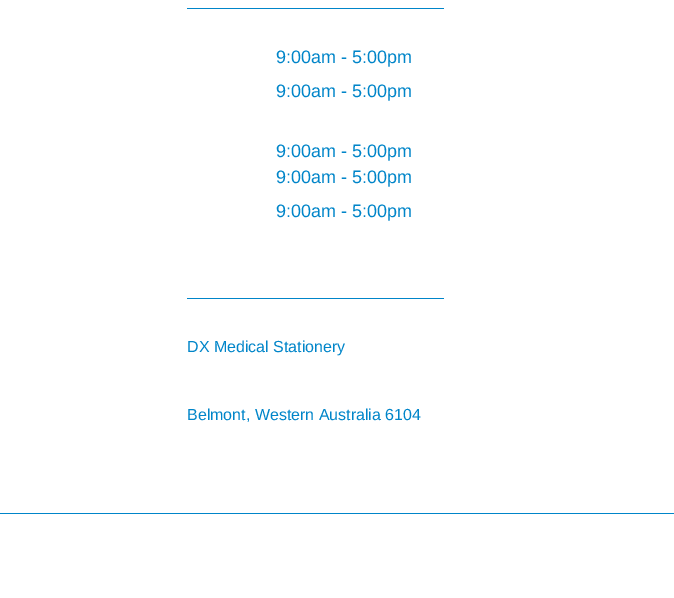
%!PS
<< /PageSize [674 598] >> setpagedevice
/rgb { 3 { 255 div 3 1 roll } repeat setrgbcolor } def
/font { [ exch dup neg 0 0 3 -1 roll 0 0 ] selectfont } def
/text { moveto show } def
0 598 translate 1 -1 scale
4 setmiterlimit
255 255 255 rgb
0 0 674 598 rectfill
0 133 201 rgb
187 8 257 1 rectfill
187 298 257 1 rectfill
0 513 674 1 rectfill
/LiberationSans-Regular 18 font
(9:00am - 5:00pm) 276 63 text
(9:00am - 5:00pm) 276 97 text
(9:00am - 5:00pm) 276 157 text
(9:00am - 5:00pm) 276 183 text
(9:00am - 5:00pm) 276 217 text
/LiberationSans-Regular 16 font
(DX Medical Stationery) 187 352 text
(Belmont, Western Australia 6104) 187 420 text
showpage
